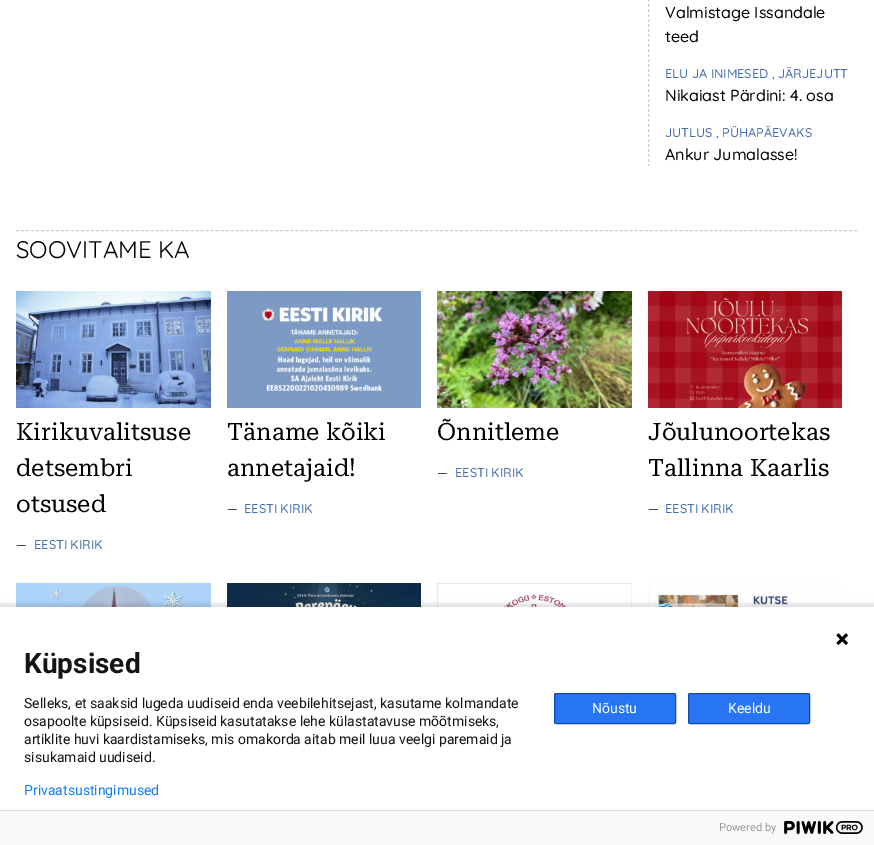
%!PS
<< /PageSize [874 845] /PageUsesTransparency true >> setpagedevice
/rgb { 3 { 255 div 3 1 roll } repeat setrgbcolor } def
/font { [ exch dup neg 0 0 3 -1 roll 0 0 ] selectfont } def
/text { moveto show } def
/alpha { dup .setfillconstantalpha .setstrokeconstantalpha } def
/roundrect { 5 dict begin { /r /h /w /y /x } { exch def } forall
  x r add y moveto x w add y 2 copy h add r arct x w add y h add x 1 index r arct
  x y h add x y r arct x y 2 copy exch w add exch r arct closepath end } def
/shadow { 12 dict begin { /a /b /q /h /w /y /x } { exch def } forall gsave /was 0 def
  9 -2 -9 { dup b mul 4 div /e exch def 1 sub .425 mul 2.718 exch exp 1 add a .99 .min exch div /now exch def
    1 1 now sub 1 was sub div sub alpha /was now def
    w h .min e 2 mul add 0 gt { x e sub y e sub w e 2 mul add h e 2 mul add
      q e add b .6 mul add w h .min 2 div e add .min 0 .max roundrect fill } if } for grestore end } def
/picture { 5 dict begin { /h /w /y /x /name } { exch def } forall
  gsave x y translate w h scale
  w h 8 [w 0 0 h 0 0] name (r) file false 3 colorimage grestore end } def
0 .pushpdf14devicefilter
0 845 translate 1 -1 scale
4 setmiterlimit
255 255 255 rgb
0 0 874 845 rectfill
205 205 205 rgb
[3 2] 0 setdash
648.5 -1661 moveto 0 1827 rlineto stroke
[3 1.99] 0 setdash
16 230.5 moveto 842 0 rlineto stroke
(img_01.rgb) 16 291 195 117 picture
(img_02.rgb) 227 291 194 117 picture
(img_03.rgb) 437 291 195 117 picture
(img_04.rgb) 648 291 194 117 picture
(img_05.rgb) 16 583 195 24 picture
(img_06.rgb) 227 583 194 24 picture
(img_07.rgb) 437 583 195 24 picture
(img_08.rgb) 648 583 194 24 picture
0 0 0 rgb
-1 604 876 240 0 2.5 0.14 shadow
255 255 255 rgb
0 607 874 203 rectfill
(img_09.rgb) 836 633 13 13 picture
39 117 242 rgb
554.5 693.5 121 30 1.5 roundrect gsave fill grestore
11 75 179 rgb
[] 0 setdash
stroke
39 117 242 rgb
688.5 693.5 121 30 1.5 roundrect gsave fill grestore
11 75 179 rgb
stroke
250 250 250 rgb
0 811 874 34 rectfill
221 221 221 rgb
0 810 874 1 rectfill
(img_10.rgb) 784 821 79 13 picture
/Quicksand-Medium 16 font
0 0 0 rgb
(Valmistage Issandale) 665 18 text
(teed) 665 42 text
/Quicksand-Medium 12.75 font
66 110 171 rgb
(ELU JA INIMESED , JÄRJEJUTT) 665 78 text
/Quicksand-Medium 16 font
0 0 0 rgb
(Nikaiast Pärdini: 4. osa) 665 101 text
/Quicksand-Medium 12.75 font
66 110 171 rgb
(JUTLUS , PÜHAPÄEVAKS) 665 137 text
/Quicksand-Medium 16 font
0 0 0 rgb
(Ankur Jumalasse!) 665 160 text
/Quicksand-Regular 24 font
(SOOVITAME KA) 16 258 text
/RobotoSerif-Regular 24 font
(Kirikuvalitsuse) 16 440 text
(detsembri) 16 476 text
(otsused) 16 512 text
/Quicksand-Regular 12.75 font
(—) 16 549 text
/Quicksand-Medium 12.75 font
66 110 171 rgb
(EESTI KIRIK) 34 549 text
/RobotoSerif-Regular 24 font
0 0 0 rgb
(Täname kõiki) 227 440 text
(annetajaid!) 227 476 text
/Quicksand-Regular 12.75 font
(—) 227 513 text
/Quicksand-Medium 12.75 font
66 110 171 rgb
(EESTI KIRIK) 244 513 text
/RobotoSerif-Regular 24 font
0 0 0 rgb
(Õnnitleme) 437 440 text
/Quicksand-Regular 12.75 font
(—) 437 477 text
/Quicksand-Medium 12.75 font
66 110 171 rgb
(EESTI KIRIK) 455 477 text
/RobotoSerif-Regular 24 font
0 0 0 rgb
(Jõulunoortekas) 648 440 text
(Tallinna Kaarlis) 648 476 text
/Quicksand-Regular 12.75 font
(—) 648 513 text
/Quicksand-Medium 12.75 font
66 110 171 rgb
(EESTI KIRIK) 665 513 text
/Roboto-Bold 28 font
19 19 19 rgb
(Küpsised) 24 673 text
/Roboto-Regular 14 font
(Selleks, et saaksid lugeda uudiseid enda veebilehitsejast, kasutame kolmandate) 24 708 text
(osapoolte küpsiseid. Küpsiseid kasutatakse lehe külastatavuse mõõtmiseks,) 24 726 text
(artiklite huvi kaardistamiseks, mis omakorda aitab meil luua veelgi paremaid ja) 24 744 text
(sisukamaid uudiseid.) 24 762 text
16 126 241 rgb
(Privaatsustingimused) 24 795 text
255 255 255 rgb
(Nõustu) 592 713 text
(Keeldu) 728 713 text
/Roboto-Regular 11 font
153 153 153 rgb
(Powered by) 719 831 text
.poppdf14devicefilter showpage
